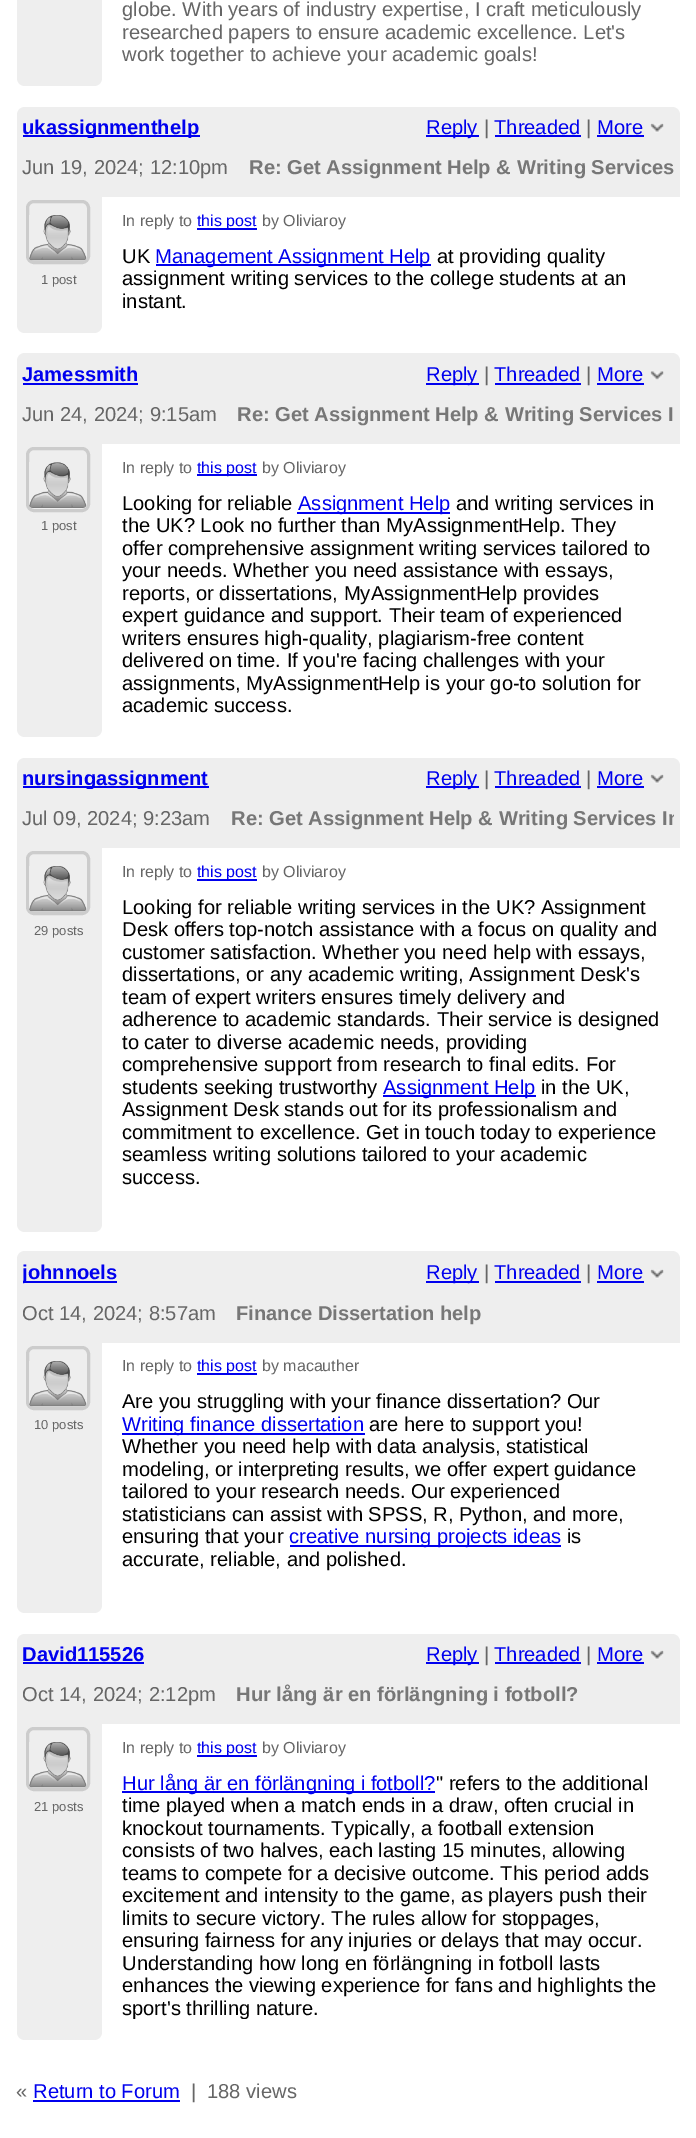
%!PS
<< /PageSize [696 2138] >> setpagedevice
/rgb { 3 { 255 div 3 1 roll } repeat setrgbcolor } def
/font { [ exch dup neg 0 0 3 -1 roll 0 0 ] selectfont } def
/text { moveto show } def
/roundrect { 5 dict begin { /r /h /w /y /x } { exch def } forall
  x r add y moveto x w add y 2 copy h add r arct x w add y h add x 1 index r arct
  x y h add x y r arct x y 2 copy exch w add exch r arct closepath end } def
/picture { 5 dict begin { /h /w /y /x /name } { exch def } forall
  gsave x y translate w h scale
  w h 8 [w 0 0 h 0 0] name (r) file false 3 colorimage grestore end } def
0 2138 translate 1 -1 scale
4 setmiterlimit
255 255 255 rgb
0 0 696 2138 rectfill
238 238 238 rgb
17 -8 moveto 85 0 rlineto 0 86 rlineto 0 4.5 -3.5 8 -8 8 rcurveto -69 0 rlineto -4.5 0 -8 -3.5 -8 -8 rcurveto closepath fill
25 107 moveto 647 0 rlineto 4.5 0 8 3.5 8 8 rcurveto 0 82 rlineto -663 0 rlineto 0 -82 rlineto 0 -4.5 3.5 -8 8 -8 rcurveto closepath fill
0 0 238 rgb
23 135 177 2 rectfill
426 135 53 2 rectfill
495 135 86 2 rectfill
597 135 47 2 rectfill
(img_01.rgb) 650 123 14 10 picture
238 238 238 rgb
17 191 moveto 85 0 rlineto 0 134 rlineto 0 4.5 -3.5 8 -8 8 rcurveto -69 0 rlineto -4.5 0 -8 -3.5 -8 -8 rcurveto closepath fill
204 204 204 rgb
3 setlinewidth
27.5 201.5 61 61 6.5 roundrect stroke
(img_02.rgb) 29 215 58 46 picture
0 0 238 rgb
197 228 60 2 rectfill
156 264 275 2 rectfill
238 238 238 rgb
25 353 moveto 647 0 rlineto 4.5 0 8 3.5 8 8 rcurveto 0 83 rlineto -663 0 rlineto 0 -83 rlineto 0 -4.5 3.5 -8 8 -8 rcurveto closepath fill
0 0 238 rgb
23 383 115 2 rectfill
426 383 53 2 rectfill
495 383 86 2 rectfill
597 383 47 2 rectfill
(img_03.rgb) 650 371 14 9 picture
238 238 238 rgb
17 438 moveto 85 0 rlineto 0 291 rlineto 0 4.5 -3.5 8 -8 8 rcurveto -69 0 rlineto -4.5 0 -8 -3.5 -8 -8 rcurveto closepath fill
204 204 204 rgb
27.5 448.5 61 62 6.5 roundrect stroke
(img_04.rgb) 29 462 58 46 picture
0 0 238 rgb
197 474 60 2 rectfill
297 512 153 2 rectfill
238 238 238 rgb
25 758 moveto 647 0 rlineto 4.5 0 8 3.5 8 8 rcurveto 0 82 rlineto -663 0 rlineto 0 -82 rlineto 0 -4.5 3.5 -8 8 -8 rcurveto closepath fill
0 0 238 rgb
23 786 186 2 rectfill
426 786 53 2 rectfill
495 786 86 2 rectfill
597 786 47 2 rectfill
(img_01.rgb) 650 774 14 10 picture
238 238 238 rgb
17 842 moveto 85 0 rlineto 0 382 rlineto 0 4.5 -3.5 8 -8 8 rcurveto -69 0 rlineto -4.5 0 -8 -3.5 -8 -8 rcurveto closepath fill
204 204 204 rgb
27.5 852.5 61 61 6.5 roundrect stroke
(img_02.rgb) 29 866 58 46 picture
0 0 238 rgb
197 879 60 2 rectfill
383 1095 153 2 rectfill
238 238 238 rgb
25 1251 moveto 647 0 rlineto 4.5 0 8 3.5 8 8 rcurveto 0 84 rlineto -663 0 rlineto 0 -84 rlineto 0 -4.5 3.5 -8 8 -8 rcurveto closepath fill
0 0 238 rgb
23 1281 94 2 rectfill
426 1281 53 2 rectfill
495 1281 86 2 rectfill
597 1281 47 2 rectfill
(img_01.rgb) 650 1269 14 10 picture
238 238 238 rgb
17 1337 moveto 85 0 rlineto 0 268 rlineto 0 4.5 -3.5 8 -8 8 rcurveto -69 0 rlineto -4.5 0 -8 -3.5 -8 -8 rcurveto closepath fill
204 204 204 rgb
27.5 1347.5 61 61 6.5 roundrect stroke
(img_02.rgb) 29 1361 58 46 picture
0 0 238 rgb
197 1373 60 2 rectfill
122 1433 243 2 rectfill
290 1545 271 2 rectfill
238 238 238 rgb
25 1634 moveto 647 0 rlineto 4.5 0 8 3.5 8 8 rcurveto 0 82 rlineto -663 0 rlineto 0 -82 rlineto 0 -4.5 3.5 -8 8 -8 rcurveto closepath fill
0 0 238 rgb
23 1662 121 2 rectfill
426 1662 53 2 rectfill
495 1662 86 2 rectfill
597 1662 47 2 rectfill
(img_01.rgb) 650 1650 14 10 picture
238 238 238 rgb
17 1718 moveto 85 0 rlineto 0 314 rlineto 0 4.5 -3.5 8 -8 8 rcurveto -69 0 rlineto -4.5 0 -8 -3.5 -8 -8 rcurveto closepath fill
204 204 204 rgb
27.5 1728.5 61 61 6.5 roundrect stroke
(img_02.rgb) 29 1742 58 46 picture
0 0 238 rgb
197 1755 60 2 rectfill
122 1791 313 2 rectfill
33 2100 147 2 rectfill
/LiberationSans-Regular 20.15 font
102 102 102 rgb
(globe. With years of industry expertise, I craft meticulously) 122 16 text
(researched papers to ensure academic excellence. Let's) 122 39 text
(work together to achieve your academic goals!) 122 61 text
gsave
23 116 177 22 rectclip
/LiberationSans-Bold 20.15 font
0 0 238 rgb
(ukassignmenthelp) 22 134 text
grestore
0 0 238 rgb
(Reply) 426 134 text
102 102 102 rgb
(|) 484 134 text
0 0 238 rgb
(Threaded) 494 134 text
102 102 102 rgb
(|) 586 134 text
0 0 238 rgb
(More) 597 134 text
102 102 102 rgb
(Jun 19, 2024; 12:10pm) 22 174 text
/LiberationSans-Bold 20.15 font
119 119 119 rgb
(Re: Get Assignment Help & Writing Services) 249 174 text
/LiberationSans-Regular 13 font
102 102 102 rgb
(1 post) 41 284 text
/LiberationSans-Regular 16 font
(In reply to) 122 226 text
0 0 238 rgb
(this post) 197 226 text
102 102 102 rgb
(by Oliviaroy) 262 226 text
/LiberationSans-Regular 20.15 font
0 0 0 rgb
(UK) 122 263 text
0 0 238 rgb
(Management Assignment Help) 155 263 text
0 0 0 rgb
(at providing quality) 437 263 text
(assignment writing services to the college students at an) 122 285 text
(instant.) 122 308 text
/LiberationSans-Bold 20.15 font
0 0 238 rgb
(Jamessmith) 22 381 text
/LiberationSans-Regular 20.15 font
(Reply) 426 381 text
102 102 102 rgb
(|) 484 381 text
0 0 238 rgb
(Threaded) 494 381 text
102 102 102 rgb
(|) 586 381 text
0 0 238 rgb
(More) 597 381 text
102 102 102 rgb
(Jun 24, 2024; 9:15am) 22 421 text
/LiberationSans-Bold 20.15 font
119 119 119 rgb
(Re: Get Assignment Help & Writing Services I) 237 421 text
/LiberationSans-Regular 13 font
102 102 102 rgb
(1 post) 41 530 text
/LiberationSans-Regular 16 font
(In reply to) 122 473 text
0 0 238 rgb
(this post) 197 473 text
102 102 102 rgb
(by Oliviaroy) 262 473 text
/LiberationSans-Regular 20.15 font
0 0 0 rgb
(Looking for reliable) 122 510 text
0 0 238 rgb
(Assignment Help) 298 510 text
0 0 0 rgb
(and writing services in) 456 510 text
(the UK? Look no further than MyAssignmentHelp. They) 122 532 text
(offer comprehensive assignment writing services tailored to) 122 555 text
(your needs. Whether you need assistance with essays,) 122 577 text
(reports, or dissertations, MyAssignmentHelp provides) 122 600 text
(expert guidance and support. Their team of experienced) 122 622 text
(writers ensures high-quality, plagiarism-free content) 122 645 text
(delivered on time. If you're facing challenges with your) 122 667 text
(assignments, MyAssignmentHelp is your go-to solution for) 122 690 text
(academic success.) 122 712 text
gsave
23 767 186 22 rectclip
/LiberationSans-Bold 20.15 font
0 0 238 rgb
(nursingassignment) 22 785 text
grestore
0 0 238 rgb
(Reply) 426 785 text
102 102 102 rgb
(|) 484 785 text
0 0 238 rgb
(Threaded) 494 785 text
102 102 102 rgb
(|) 586 785 text
0 0 238 rgb
(More) 597 785 text
102 102 102 rgb
(Jul 09, 2024; 9:23am) 22 825 text
gsave
23 807 651 27 rectclip
/LiberationSans-Bold 20.15 font
119 119 119 rgb
(Re: Get Assignment Help & Writing Services In) 231 825 text
grestore
/LiberationSans-Regular 13 font
(29 posts) 34 935 text
/LiberationSans-Regular 16 font
(In reply to) 122 877 text
0 0 238 rgb
(this post) 197 877 text
102 102 102 rgb
(by Oliviaroy) 262 877 text
/LiberationSans-Regular 20.15 font
0 0 0 rgb
(Looking for reliable writing services in the UK? Assignment) 122 914 text
(Desk offers top-notch assistance with a focus on quality and) 122 936 text
(customer satisfaction. Whether you need help with essays,) 122 959 text
(dissertations, or any academic writing, Assignment Desk's) 122 981 text
(team of expert writers ensures timely delivery and) 122 1004 text
(adherence to academic standards. Their service is designed) 122 1026 text
(to cater to diverse academic needs, providing) 122 1049 text
(comprehensive support from research to final edits. For) 122 1071 text
(students seeking trustworthy) 122 1094 text
0 0 238 rgb
(Assignment Help) 383 1094 text
0 0 0 rgb
(in the UK,) 541 1094 text
(Assignment Desk stands out for its professionalism and) 122 1116 text
(commitment to excellence. Get in touch today to experience) 122 1139 text
(seamless writing solutions tailored to your academic) 122 1161 text
(success.) 122 1184 text
gsave
23 1262 94 22 rectclip
/LiberationSans-Bold 20.15 font
0 0 238 rgb
(johnnoels) 22 1279 text
grestore
0 0 238 rgb
(Reply) 426 1279 text
102 102 102 rgb
(|) 484 1279 text
0 0 238 rgb
(Threaded) 494 1279 text
102 102 102 rgb
(|) 586 1279 text
0 0 238 rgb
(More) 597 1279 text
102 102 102 rgb
(Oct 14, 2024; 8:57am) 22 1320 text
/LiberationSans-Bold 20.15 font
119 119 119 rgb
(Finance Dissertation help) 236 1320 text
/LiberationSans-Regular 13 font
102 102 102 rgb
(10 posts) 34 1429 text
/LiberationSans-Regular 16 font
(In reply to) 122 1371 text
0 0 238 rgb
(this post) 197 1371 text
102 102 102 rgb
(by macauther) 262 1371 text
/LiberationSans-Regular 20.15 font
0 0 0 rgb
(Are you struggling with your finance dissertation? Our) 122 1408 text
0 0 238 rgb
(Writing finance dissertation) 122 1431 text
0 0 0 rgb
(are here to support you!) 369 1431 text
(Whether you need help with data analysis, statistical) 122 1453 text
(modeling, or interpreting results, we offer expert guidance) 122 1476 text
(tailored to your research needs. Our experienced) 122 1498 text
(statisticians can assist with SPSS, R, Python, and more,) 122 1521 text
(ensuring that your) 122 1543 text
0 0 238 rgb
(creative nursing projects ideas) 289 1543 text
0 0 0 rgb
(is) 567 1543 text
(accurate, reliable, and polished.) 122 1566 text
/LiberationSans-Bold 20.15 font
0 0 238 rgb
(David115526) 22 1661 text
/LiberationSans-Regular 20.15 font
(Reply) 426 1661 text
102 102 102 rgb
(|) 484 1661 text
0 0 238 rgb
(Threaded) 494 1661 text
102 102 102 rgb
(|) 586 1661 text
0 0 238 rgb
(More) 597 1661 text
102 102 102 rgb
(Oct 14, 2024; 2:12pm) 22 1701 text
/LiberationSans-Bold 20.15 font
119 119 119 rgb
(Hur lång är en förlängning i fotboll?) 236 1701 text
/LiberationSans-Regular 13 font
102 102 102 rgb
(21 posts) 34 1811 text
/LiberationSans-Regular 16 font
(In reply to) 122 1753 text
0 0 238 rgb
(this post) 197 1753 text
102 102 102 rgb
(by Oliviaroy) 262 1753 text
/LiberationSans-Regular 20.15 font
0 0 238 rgb
(Hur lång är en förlängning i fotboll?) 122 1790 text
0 0 0 rgb
(" refers to the additional) 436 1790 text
(time played when a match ends in a draw, often crucial in) 122 1812 text
(knockout tournaments. Typically, a football extension) 122 1835 text
(consists of two halves, each lasting 15 minutes, allowing) 122 1857 text
(teams to compete for a decisive outcome. This period adds) 122 1880 text
(excitement and intensity to the game, as players push their) 122 1902 text
(limits to secure victory. The rules allow for stoppages,) 122 1925 text
(ensuring fairness for any injuries or delays that may occur.) 122 1947 text
(Understanding how long en förlängning in fotboll lasts) 122 1970 text
(enhances the viewing experience for fans and highlights the) 122 1992 text
gsave
122 1772 538 247 rectclip
(sport's thrilling nature.) 122 2015 text
grestore
102 102 102 rgb
(«) 16 2098 text
0 0 238 rgb
(Return to Forum) 33 2098 text
102 102 102 rgb
(|) 191 2098 text
(188 views) 207 2098 text
showpage
